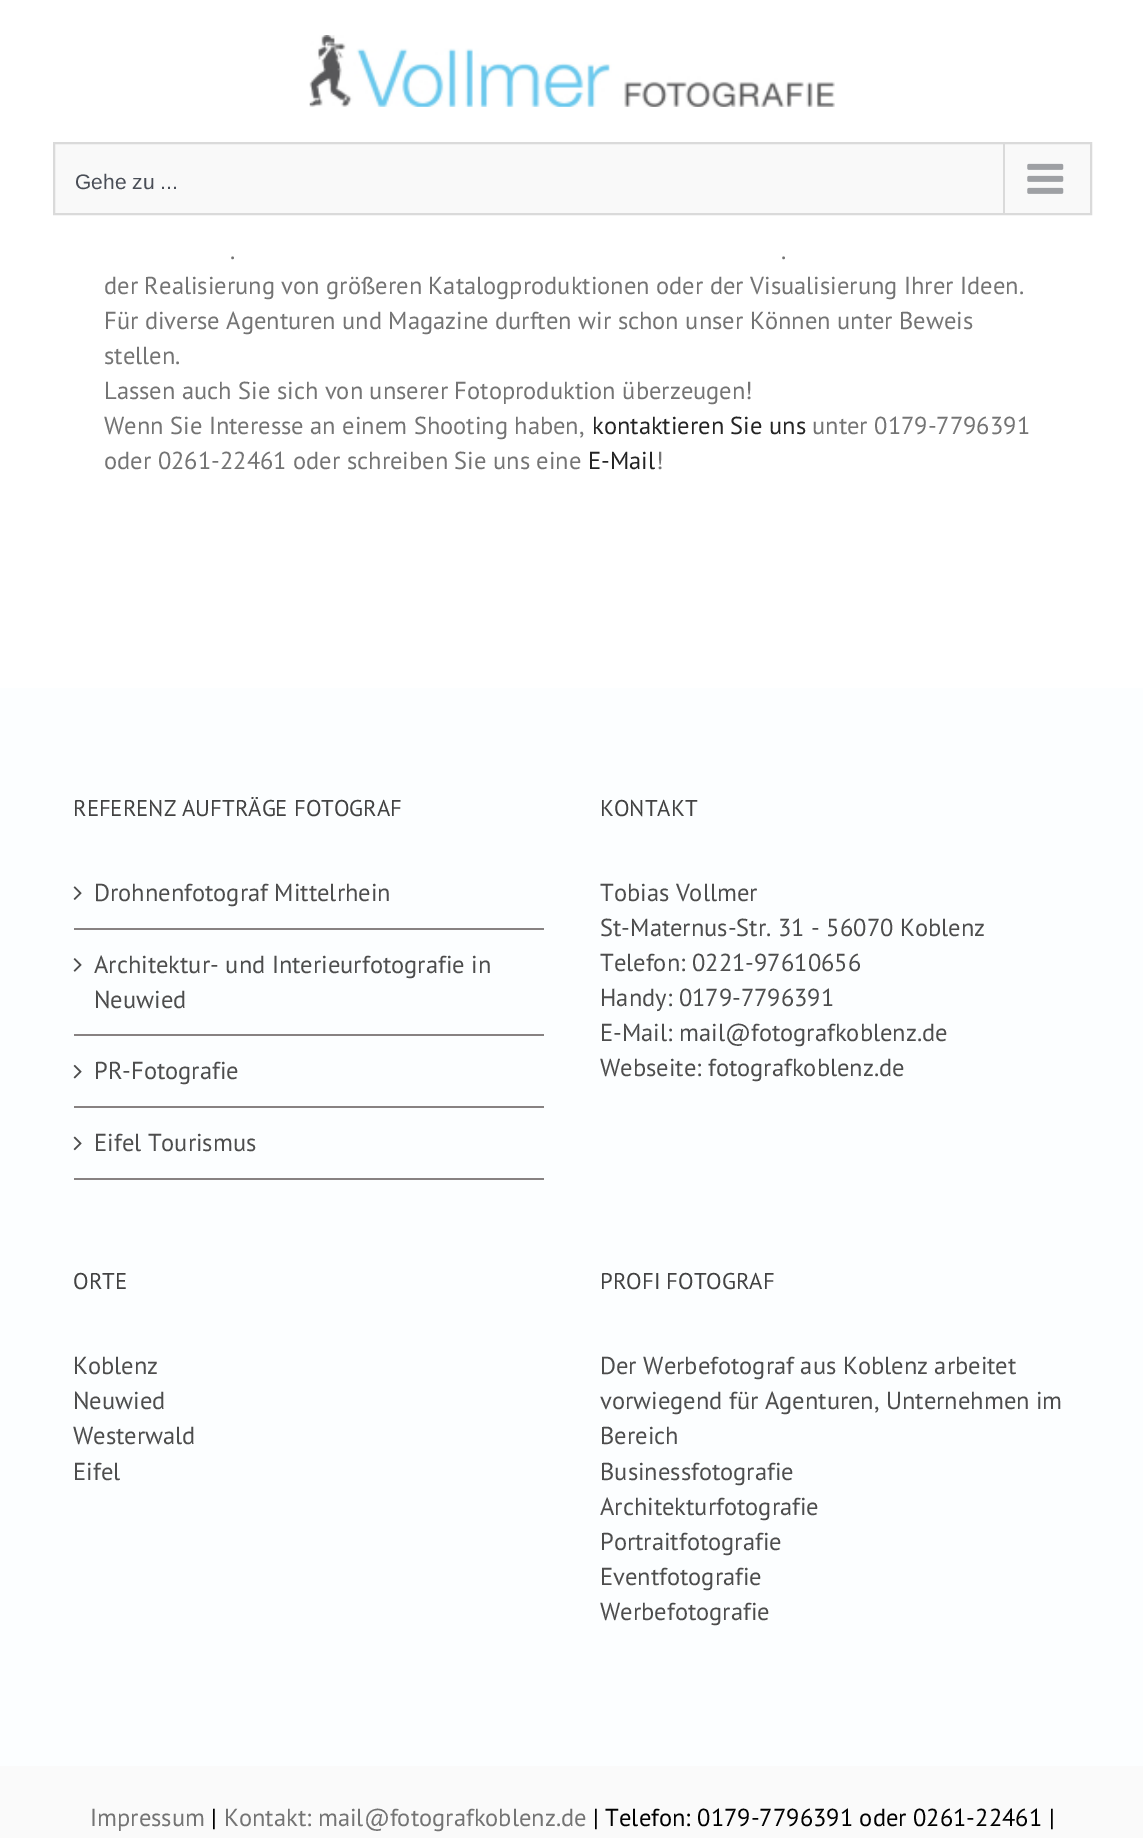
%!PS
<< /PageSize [1143 1838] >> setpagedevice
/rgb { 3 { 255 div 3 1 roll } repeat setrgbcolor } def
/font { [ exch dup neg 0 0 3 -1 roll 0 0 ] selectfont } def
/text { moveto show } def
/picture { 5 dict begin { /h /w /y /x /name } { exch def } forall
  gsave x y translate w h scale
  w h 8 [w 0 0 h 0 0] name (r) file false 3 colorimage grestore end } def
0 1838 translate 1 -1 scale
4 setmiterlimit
255 255 255 rgb
0 0 1143 1838 rectfill
(img_01.rgb) 309 35 526 72 picture
249 249 249 rgb
54 143 moveto 1037 0 rlineto 0 71 rlineto -1037 0 rlineto closepath gsave fill grestore
218 218 218 rgb
2 setlinewidth
stroke
1003 144 2 70 rectfill
(img_02.rgb) 1027 163 37 31 picture
252 254 255 rgb
0 688 1143 1078 rectfill
135 130 130 rgb
74 928 470 2 rectfill
(img_03.rgb) 73 886 9 14 picture
74 1034 470 2 rectfill
(img_04.rgb) 73 958 9 14 picture
74 1106 470 2 rectfill
(img_05.rgb) 73 1064 9 15 picture
74 1178 470 2 rectfill
(img_06.rgb) 73 1136 9 15 picture
250 250 250 rgb
0 1766 1143 72 rectfill
/LiberationSans-Regular 21 font
74 78 87 rgb
(Gehe zu ...) 75 189 text
/PTSans-Regular 24.5 font
116 116 116 rgb
(.) 230 259 text
(.) 781 259 text
(der Realisierung von größeren Katalogproduktionen oder der Visualisierung Ihrer Ideen.) 104 294 text
(Für diverse Agenturen und Magazine durften wir schon unser Können unter Beweis) 104 329 text
(stellen.) 104 364 text
(Lassen auch Sie sich von unserer Fotoproduktion überzeugen!) 104 399 text
(Wenn Sie Interesse an einem Shooting haben,) 104 434 text
36 36 36 rgb
(kontaktieren Sie uns) 592 434 text
116 116 116 rgb
(unter 0179-7796391) 812 434 text
(oder 0261-22461 oder schreiben Sie uns eine) 104 469 text
36 36 36 rgb
(E-Mail) 588 469 text
116 116 116 rgb
(!) 656 469 text
/PTSans-Regular 22.75 font
66 66 66 rgb
(REFERENZ AUFTRÄGE FOTOGRAF) 73 816 text
/PTSans-Regular 24.5 font
77 77 77 rgb
(Drohnenfotograf Mittelrhein) 94 901 text
(Architektur- und Interieurfotografie in) 94 973 text
(Neuwied) 94 1008 text
(PR-Fotografie) 94 1079 text
(Eifel Tourismus) 94 1151 text
/PTSans-Regular 22.75 font
66 66 66 rgb
(KONTAKT) 600 816 text
/PTSans-Regular 24.5 font
77 77 77 rgb
(Tobias Vollmer) 600 901 text
(St-Maternus-Str. 31 - 56070 Koblenz) 600 936 text
(Telefon: 0221-97610656) 600 971 text
(Handy: 0179-7796391) 600 1006 text
(E-Mail: mail@fotografkoblenz.de) 600 1041 text
(Webseite: fotografkoblenz.de) 600 1076 text
/PTSans-Regular 22.75 font
66 66 66 rgb
(ORTE) 73 1289 text
/PTSans-Regular 24.5 font
77 77 77 rgb
(Koblenz) 73 1374 text
(Neuwied) 73 1409 text
(Westerwald) 73 1444 text
(Eifel) 73 1480 text
/PTSans-Regular 22.75 font
66 66 66 rgb
(PROFI FOTOGRAF) 600 1289 text
/PTSans-Regular 24.5 font
77 77 77 rgb
(Der Werbefotograf aus Koblenz arbeitet) 600 1374 text
(vorwiegend für Agenturen, Unternehmen im) 600 1409 text
(Bereich) 600 1444 text
(Businessfotografie) 600 1480 text
(Architekturfotografie) 600 1515 text
(Portraitfotografie) 600 1550 text
(Eventfotografie) 600 1585 text
(Werbefotografie) 600 1620 text
116 116 116 rgb
(Impressum) 90 1826 text
0 0 0 rgb
(|) 211 1826 text
116 116 116 rgb
(Kontakt: mail@fotografkoblenz.de) 224 1826 text
0 0 0 rgb
(| Telefon: 0179-7796391 oder 0261-22461 |) 593 1826 text
showpage
